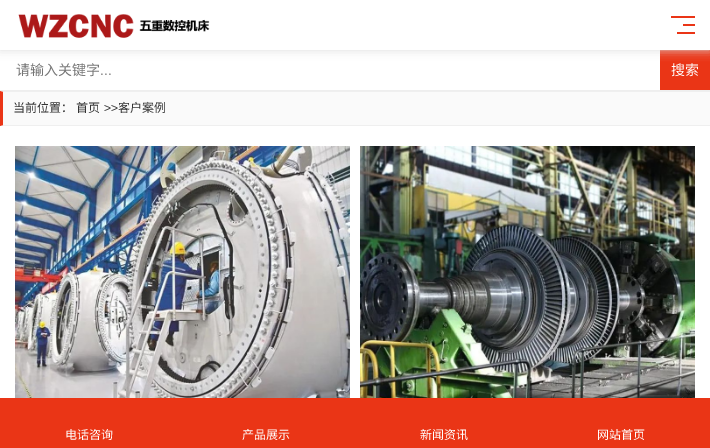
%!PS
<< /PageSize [710 448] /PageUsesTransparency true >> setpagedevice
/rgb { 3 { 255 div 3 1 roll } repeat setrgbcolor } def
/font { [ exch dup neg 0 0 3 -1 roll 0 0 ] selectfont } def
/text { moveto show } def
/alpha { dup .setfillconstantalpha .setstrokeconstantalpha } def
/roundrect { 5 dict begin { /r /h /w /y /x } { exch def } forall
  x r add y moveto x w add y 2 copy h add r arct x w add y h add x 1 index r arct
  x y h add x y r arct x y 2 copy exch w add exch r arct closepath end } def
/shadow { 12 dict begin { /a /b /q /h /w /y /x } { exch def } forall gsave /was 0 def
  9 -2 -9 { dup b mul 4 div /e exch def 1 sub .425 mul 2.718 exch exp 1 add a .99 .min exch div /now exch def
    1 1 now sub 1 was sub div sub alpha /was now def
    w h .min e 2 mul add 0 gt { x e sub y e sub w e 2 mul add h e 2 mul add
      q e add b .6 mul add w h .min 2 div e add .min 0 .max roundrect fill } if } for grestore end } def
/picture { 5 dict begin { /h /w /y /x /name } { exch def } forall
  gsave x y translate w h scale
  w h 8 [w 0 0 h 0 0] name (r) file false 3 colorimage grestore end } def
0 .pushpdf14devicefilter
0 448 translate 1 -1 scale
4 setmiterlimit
255 255 255 rgb
0 0 710 448 rectfill
234 53 22 rgb
660 50 50 40 rectfill
221 221 221 rgb
0 0 710 50 0 5 1 shadow
255 255 255 rgb
0 0 710 50 rectfill
(img_01.rgb) 18 14 192 24 picture
234 53 22 rgb
671 16 24 2 rectfill
683 24 12 2 rectfill
677 32 18 2 rectfill
238 238 238 rgb
0 90 710 1 rectfill
250 250 250 rgb
0 91 710 35 rectfill
239 239 239 rgb
0 91 moveto 710 0 rlineto 0 1 rlineto -707 0 rlineto closepath fill
710 126 moveto -710 0 rlineto 3 -1 rlineto 707 0 rlineto closepath fill
234 53 22 rgb
0 126 moveto 0 -35 rlineto 3 1 rlineto 0 33 rlineto closepath fill
(img_02.rgb) 15 146 335 252 picture
(img_03.rgb) 360 146 335 252 picture
0 398 710 50 rectfill
/NotoSansCJKSC-Regular 14 font
117 117 117 rgb
(请输入关键字) 16 75 text
/LiberationSans-Regular 14 font
(...) 100 75 text
/NotoSansCJKSC-Regular 14 font
255 255 255 rgb
(搜索) 671 75 text
/NotoSansCJKSC-Regular 12 font
51 51 51 rgb
(当前位置：) 13 112 text
(首页) 76 112 text
/LiberationSans-Regular 12 font
(>>) 104 112 text
/NotoSansCJKSC-Regular 12 font
(客户案例) 118 112 text
255 255 255 rgb
(电话咨询) 65 439 text
(产品展示) 242 439 text
(新闻资讯) 420 439 text
(网站首页) 597 439 text
.poppdf14devicefilter showpage
